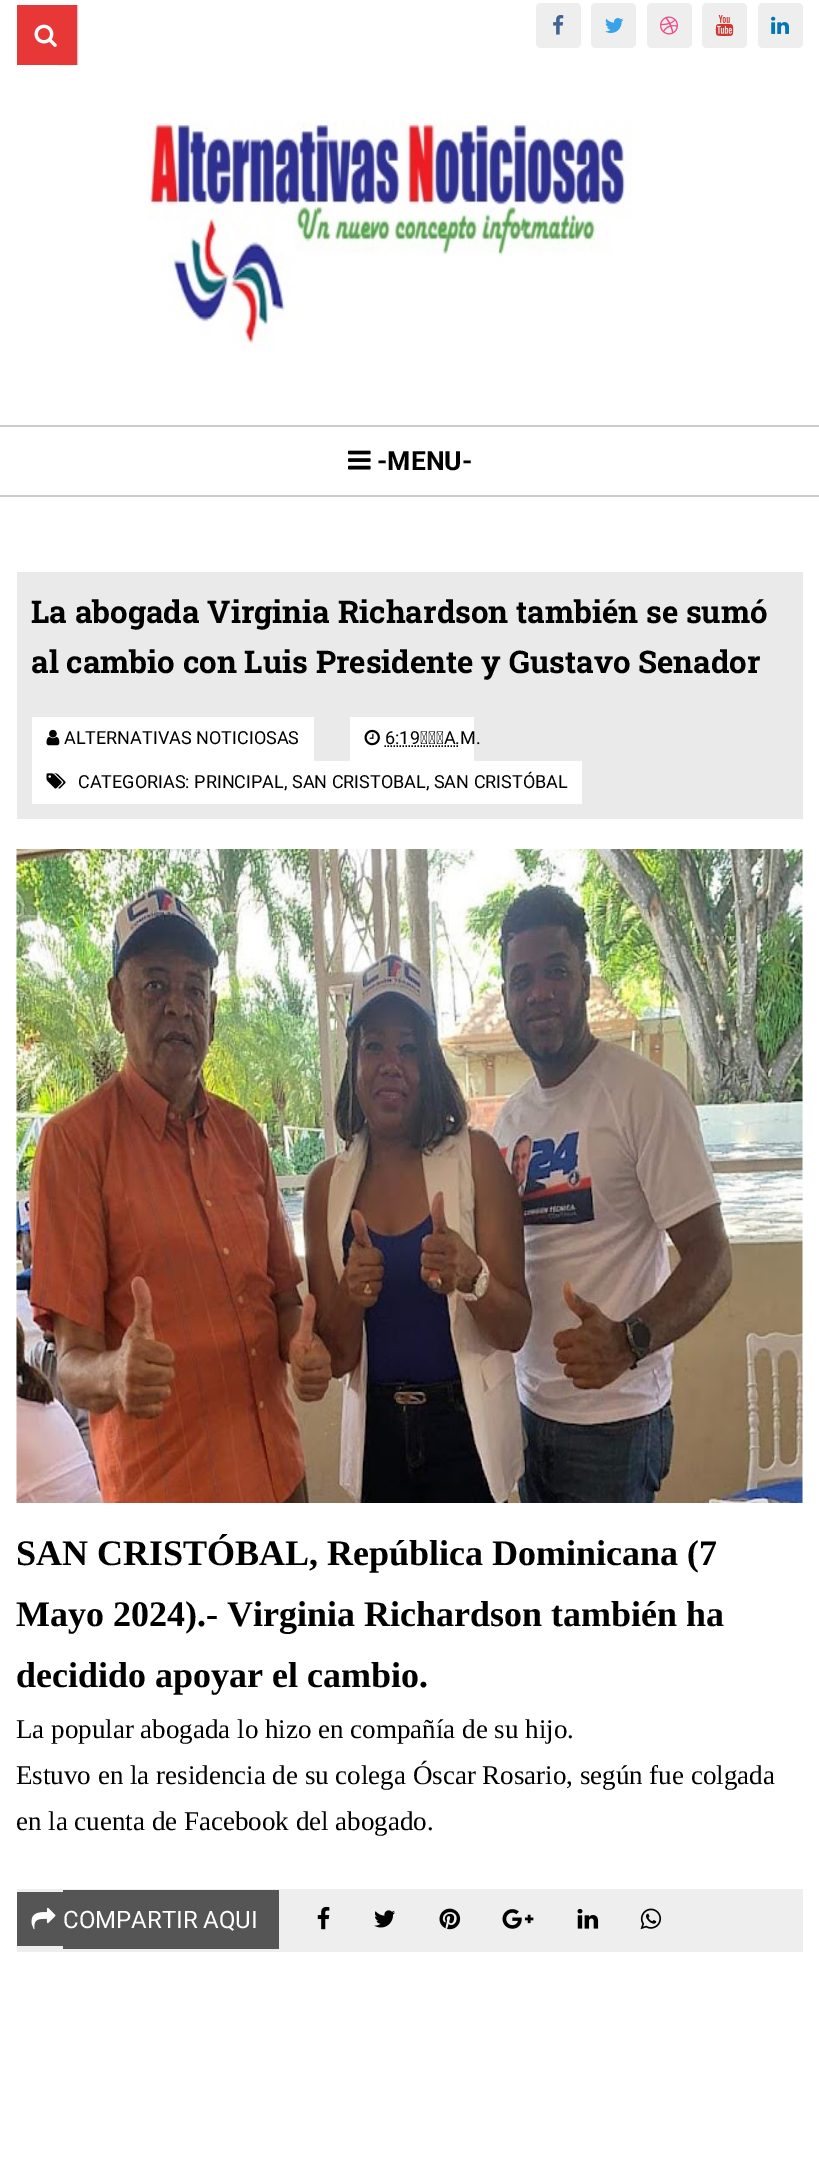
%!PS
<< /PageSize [819 2184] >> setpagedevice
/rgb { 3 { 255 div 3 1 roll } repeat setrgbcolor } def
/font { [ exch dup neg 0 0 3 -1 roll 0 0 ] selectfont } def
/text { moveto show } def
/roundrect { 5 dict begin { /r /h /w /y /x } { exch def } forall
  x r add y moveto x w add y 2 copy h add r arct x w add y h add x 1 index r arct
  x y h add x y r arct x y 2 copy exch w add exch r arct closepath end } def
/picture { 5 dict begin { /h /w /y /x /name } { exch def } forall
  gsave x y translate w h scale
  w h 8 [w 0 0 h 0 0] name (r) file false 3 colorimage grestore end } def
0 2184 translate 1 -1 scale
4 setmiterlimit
255 255 255 rgb
0 0 819 2184 rectfill
204 204 204 rgb
2 setlinewidth
58 6 19 58 rectstroke
232 55 55 rgb
17 5 60 60 rectfill
(img_01.rgb) 34 24 23 23 picture
238 238 238 rgb
536 3 45 45 5 roundrect fill
(img_02.rgb) 553 15 11 20 picture
591 3 45 45 5 roundrect fill
(img_03.rgb) 605 18 19 15 picture
647 3 45 45 5 roundrect fill
(img_04.rgb) 660 16 18 19 picture
702 3 45 45 5 roundrect fill
(img_05.rgb) 715 15 19 21 picture
758 3 45 45 5 roundrect fill
(img_06.rgb) 771 16 18 18 picture
(img_07.rgb) 147 120 486 231 picture
204 204 204 rgb
0 425 819 2 rectfill
0 495 819 2 rectfill
(img_08.rgb) 348 450 23 20 picture
234 234 234 rgb
17 572 786 247 rectfill
255 255 255 rgb
32 717 282 44 rectfill
(img_09.rgb) 46 729 14 17 picture
350 717 124 44 rectfill
(img_10.rgb) 364 729 16 17 picture
0 0 0 rgb
1.5 setlinewidth
[1.5 1.5] 0 setdash
384.5 746 moveto 74 0 rlineto stroke
255 255 255 rgb
32 761 550 43 rectfill
(img_11.rgb) 46 773 20 16 picture
(img_12.rgb) 16 849 787 654 picture
238 238 238 rgb
17 1889 786 63 rectfill
85 85 85 rgb
17 1892 46 54 rectfill
63 1890 216 59 rectfill
(img_13.rgb) 31 1907 25 23 picture
(img_14.rgb) 317 1906 13 24 picture
(img_15.rgb) 374 1910 21 18 picture
(img_16.rgb) 439 1908 22 22 picture
(img_17.rgb) 502 1909 32 20 picture
(img_18.rgb) 577 1908 22 21 picture
(img_19.rgb) 640 1908 22 22 picture
/Roboto-Bold 26.5 font
0 0 0 rgb
(-MENU-) 377 470 text
/RobotoSlab-Bold 31.2 font
(La abogada Virginia Richardson también se sumó) 31 623 text
(al cambio con Luis Presidente y Gustavo Senador) 31 673 text
/Roboto-Regular 18 font
(ALTERNATIVAS NOTICIOSAS) 64 744 text
(6:19 A.M.) 385 744 text
(CATEGORIAS: PRINCIPAL, SAN CRISTOBAL, SAN CRISTÓBAL) 78 788 text
/LiberationSerif-Bold 36 font
(SAN CRISTÓBAL, República Dominicana \(7) 16 1565 text
(Mayo 2024\).- Virginia Richardson también ha) 16 1626 text
(decidido apoyar el cambio.) 16 1687 text
/LiberationSerif-Regular 27 font
(La popular abogada lo hizo en compañía de su hijo.) 16 1738 text
(Estuvo en la residencia de su colega Óscar Rosario, según fue colgada) 16 1784 text
(en la cuenta de Facebook del abogado.) 16 1830 text
/Roboto-Regular 24 font
255 255 255 rgb
(COMPARTIR AQUI) 63 1928 text
showpage
